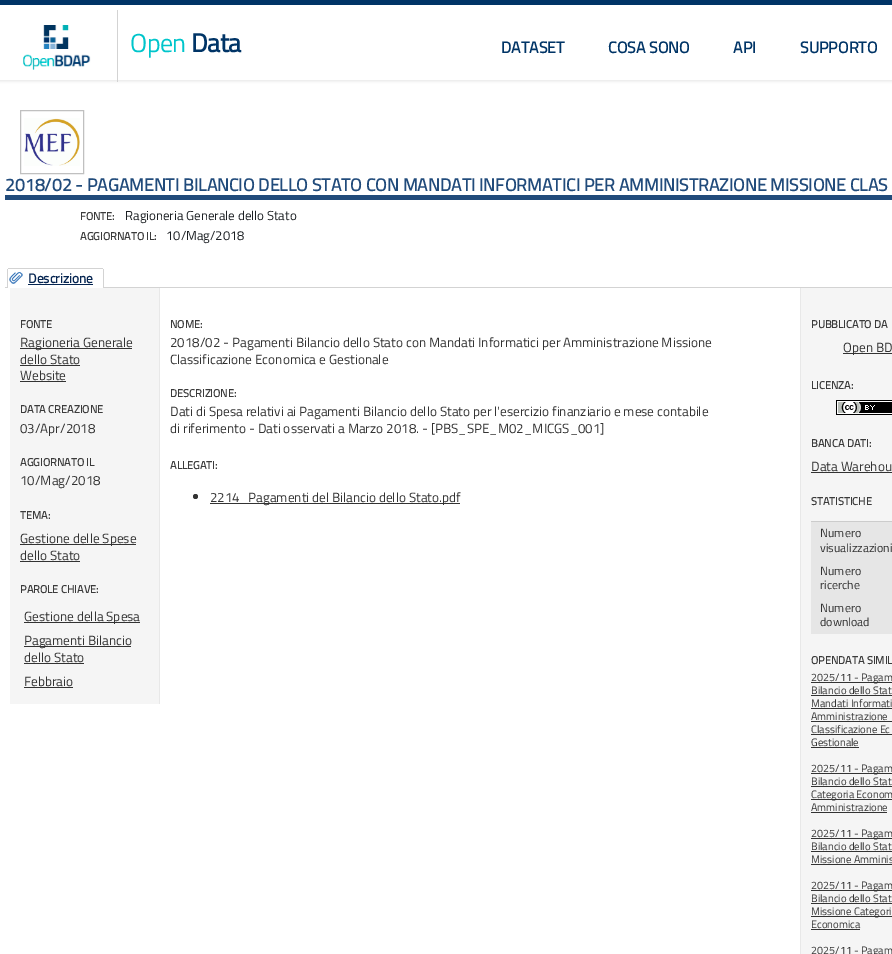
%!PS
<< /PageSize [892 954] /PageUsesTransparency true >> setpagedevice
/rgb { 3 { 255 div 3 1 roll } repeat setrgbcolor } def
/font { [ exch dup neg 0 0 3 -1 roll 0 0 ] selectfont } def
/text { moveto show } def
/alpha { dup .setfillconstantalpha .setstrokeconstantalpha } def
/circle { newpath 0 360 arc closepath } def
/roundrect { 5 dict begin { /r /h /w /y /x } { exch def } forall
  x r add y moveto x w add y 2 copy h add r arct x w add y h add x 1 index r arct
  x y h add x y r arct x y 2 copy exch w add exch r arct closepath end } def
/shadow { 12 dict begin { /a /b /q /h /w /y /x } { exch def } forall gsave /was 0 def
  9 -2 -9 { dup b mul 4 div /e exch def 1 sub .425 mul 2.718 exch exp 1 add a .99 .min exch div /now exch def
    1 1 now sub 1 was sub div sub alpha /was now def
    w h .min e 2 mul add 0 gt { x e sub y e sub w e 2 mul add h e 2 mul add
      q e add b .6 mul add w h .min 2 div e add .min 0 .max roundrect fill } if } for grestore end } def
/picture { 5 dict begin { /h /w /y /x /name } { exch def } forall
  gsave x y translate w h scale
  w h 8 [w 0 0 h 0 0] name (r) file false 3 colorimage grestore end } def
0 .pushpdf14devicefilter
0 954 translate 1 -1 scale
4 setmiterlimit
255 255 255 rgb
0 0 892 954 rectfill
gsave
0 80 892 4 rectclip
229 229 229 rgb
-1 -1 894 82 0 1.5 1 shadow
grestore
0 52 102 rgb
0 0 892 5 rectfill
211 211 211 rgb
117 10 1 72 rectfill
(img_01.rgb) 23 25 68 45 picture
192 192 192 rgb
20.5 110.5 63 63 rectstroke
(img_02.rgb) 24 118 56 48 picture
33 75 123 rgb
5 195 887 5 rectfill
211 211 211 rgb
5 287 887 1 rectfill
255 255 255 rgb
9 268 moveto 93 0 rlineto 1 0 2 1 2 2 rcurveto 0 18 rlineto -97 0 rlineto 0 -18 rlineto 0 -1 1 -2 2 -2 rcurveto closepath fill
211 211 211 rgb
8 268 95 1 rectfill
103 269 1 19 rectfill
7 269 1 19 rectfill
(img_03.rgb) 9 272 14 12 picture
6 37 81 rgb
28 284 65 1 rectfill
245 245 245 rgb
10 288 149 416 rectfill
232 232 232 rgb
159 288 1 416 rectfill
51 51 51 rgb
20 348 112 1 rectfill
20 365 60 1 rectfill
20 381 46 1 rectfill
20 544 116 1 rectfill
20 561 60 1 rectfill
24 622 116 1 rectfill
24 646 107 1 rectfill
24 663 60 1 rectfill
24 687 49 1 rectfill
195.5 496.5 2.5 circle fill
210 503 250 1 rectfill
245 245 245 rgb
801 288 91 666 rectfill
232 232 232 rgb
800 288 1 666 rectfill
51 51 51 rgb
843 353 49 1 rectfill
(img_04.rgb) 836 400 56 15 picture
811 472 81 1 rectfill
204 204 204 rgb
811 521 81 1 rectfill
230 230 230 rgb
811 522 81 112 rectfill
51 51 51 rgb
811 682 81 1 rectfill
811 695 81 1 rectfill
811 708 81 1 rectfill
811 721 81 1 rectfill
811 734 81 1 rectfill
811 747 48 1 rectfill
811 773 81 1 rectfill
811 786 81 1 rectfill
811 799 81 1 rectfill
811 812 76 1 rectfill
811 838 81 1 rectfill
811 851 81 1 rectfill
811 864 81 1 rectfill
811 890 81 1 rectfill
811 903 81 1 rectfill
811 916 81 1 rectfill
811 929 49 1 rectfill
/TitilliumWeb-Regular 26 font
0 197 203 rgb
130 52 moveto -0.5 0 (Open) ashow
/TitilliumWeb-Bold 26 font
0 52 102 rgb
191 52 moveto -0.5 0 (Data) ashow
/TitilliumWeb-Bold 16 font
(DATASET) 501 53 text
(COSA SONO) 608 53 text
(API) 733 53 text
(SUPPORTO) 800 53 text
/TitilliumWeb-Bold 17.6 font
33 75 123 rgb
(2018/02 - PAGAMENTI BILANCIO DELLO STATO CON MANDATI INFORMATICI PER AMMINISTRAZIONE MISSIONE CLAS) 5 191 text
/TitilliumWeb-Bold 11 font
59 59 59 rgb
(FONTE:) 80 220 text
/TitilliumWeb-Regular 13 font
28 32 36 rgb
(Ragioneria Generale dello Stato) 125 220 text
/TitilliumWeb-Bold 11 font
59 59 59 rgb
(AGGIORNATO IL:) 80 240 text
/TitilliumWeb-Regular 13 font
28 32 36 rgb
(10/Mag/2018) 166 240 text
/TitilliumWeb-Bold 13.35 font
6 37 81 rgb
(Descrizione) 28 283 text
/TitilliumWeb-Bold 11 font
59 59 59 rgb
(FONTE) 20 328 text
/TitilliumWeb-Regular 13.35 font
51 51 51 rgb
(Ragioneria Generale) 20 347 text
(dello Stato) 20 364 text
(Website) 20 380 text
/TitilliumWeb-Bold 11 font
59 59 59 rgb
(DATA CREAZIONE) 20 413 text
/TitilliumWeb-Regular 13.35 font
51 51 51 rgb
(03/Apr/2018) 20 433 text
/TitilliumWeb-Bold 11 font
59 59 59 rgb
(AGGIORNATO IL) 20 466 text
/TitilliumWeb-Regular 13.35 font
51 51 51 rgb
(10/Mag/2018) 20 485 text
/TitilliumWeb-Bold 11 font
59 59 59 rgb
(TEMA:) 20 519 text
/TitilliumWeb-Regular 13.35 font
51 51 51 rgb
(Gestione delle Spese) 20 543 text
(dello Stato) 20 560 text
/TitilliumWeb-Bold 11 font
59 59 59 rgb
(PAROLE CHIAVE:) 20 593 text
/TitilliumWeb-Regular 13.35 font
51 51 51 rgb
(Gestione della Spesa) 24 621 text
(Pagamenti Bilancio) 24 645 text
(dello Stato) 24 662 text
(Febbraio) 24 686 text
/TitilliumWeb-Bold 11 font
59 59 59 rgb
(NOME:) 170 328 text
/TitilliumWeb-Regular 13.35 font
51 51 51 rgb
(2018/02 - Pagamenti Bilancio dello Stato con Mandati Informatici per Amministrazione Missione) 170 347 text
(Classificazione Economica e Gestionale) 170 364 text
/TitilliumWeb-Bold 11 font
59 59 59 rgb
(DESCRIZIONE:) 170 397 text
/TitilliumWeb-Regular 13.35 font
51 51 51 rgb
(Dati di Spesa relativi ai Pagamenti Bilancio dello Stato per l'esercizio finanziario e mese contabile) 170 416 text
(di riferimento - Dati osservati a Marzo 2018. - [PBS_SPE_M02_MICGS_001]) 170 433 text
/TitilliumWeb-Bold 11 font
59 59 59 rgb
(ALLEGATI:) 170 469 text
/TitilliumWeb-Regular 13.35 font
51 51 51 rgb
(2214_Pagamenti del Bilancio dello Stato.pdf) 210 502 text
/TitilliumWeb-Bold 11 font
59 59 59 rgb
(PUBBLICATO DA) 811 328 text
/TitilliumWeb-Regular 13.35 font
51 51 51 rgb
(Open BD) 843 352 text
/TitilliumWeb-Bold 11 font
59 59 59 rgb
(LICENZA:) 811 389 text
(BANCA DATI:) 811 447 text
/TitilliumWeb-Regular 13.35 font
51 51 51 rgb
(Data Warehou) 811 471 text
/TitilliumWeb-Bold 11 font
59 59 59 rgb
(STATISTICHE) 811 505 text
/TitilliumWeb-Regular 12 font
51 51 51 rgb
(Numero) 820 537 text
(visualizzazioni) 820 552 text
(Numero) 820 575 text
(ricerche) 820 589 text
(Numero) 820 612 text
(download) 820 626 text
/TitilliumWeb-Bold 11 font
59 59 59 rgb
(OPENDATA SIMIL) 811 664 text
/TitilliumWeb-Regular 10.75 font
51 51 51 rgb
(2025/11 - Pagam) 811 681 text
(Bilancio dello Stat) 811 694 text
(Mandati Informati) 811 707 text
(Amministrazione) 811 720 text
(Classificazione Ec) 811 733 text
(Gestionale) 811 746 text
(2025/11 - Pagam) 811 772 text
(Bilancio dello Stat) 811 785 text
(Categoria Econom) 811 798 text
(Amministrazione) 811 811 text
(2025/11 - Pagam) 811 837 text
(Bilancio dello Stat) 811 850 text
(Missione Amminis) 811 863 text
(2025/11 - Pagam) 811 889 text
(Bilancio dello Stat) 811 902 text
(Missione Categori) 811 915 text
(Economica) 811 928 text
(2025/11 - Pagam) 811 954 text
.poppdf14devicefilter showpage
